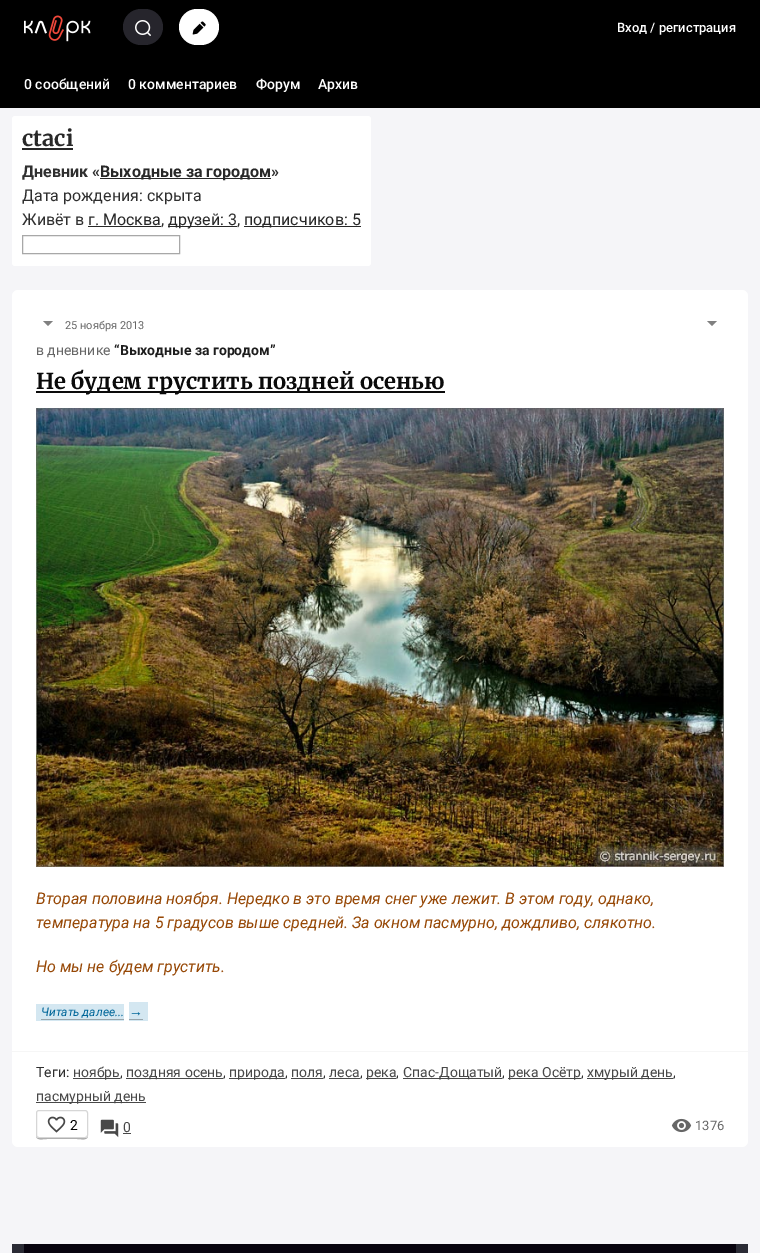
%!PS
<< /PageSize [760 1253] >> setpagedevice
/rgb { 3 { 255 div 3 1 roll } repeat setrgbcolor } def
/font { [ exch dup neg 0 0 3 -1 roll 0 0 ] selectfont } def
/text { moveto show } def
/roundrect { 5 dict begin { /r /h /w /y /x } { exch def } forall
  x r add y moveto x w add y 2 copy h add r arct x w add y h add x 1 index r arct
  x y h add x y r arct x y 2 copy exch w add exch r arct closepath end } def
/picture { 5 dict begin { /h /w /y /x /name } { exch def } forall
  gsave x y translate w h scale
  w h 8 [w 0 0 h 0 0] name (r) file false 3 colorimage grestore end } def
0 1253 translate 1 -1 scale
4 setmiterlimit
245 245 248 rgb
0 0 760 1253 rectfill
0 0 0 rgb
0 0 760 108 rectfill
(img_01.rgb) 24 15 67 27 picture
38 37 44 rgb
123 9 40 36 18 roundrect fill
(img_02.rgb) 135 20 16 16 picture
255 255 255 rgb
179 9 40 36 18 roundrect fill
(img_03.rgb) 192 21 14 14 picture
12 116 359 150 3 roundrect fill
40 40 40 rgb
22 148 51 2 rectfill
100 178 171 1 rectfill
88 226 73 1 rectfill
168 226 69 1 rectfill
244 226 117 1 rectfill
168 168 168 rgb
22.5 235.5 157 18 rectstroke
255 255 255 rgb
12 290 736 857 6 roundrect fill
128 128 128 rgb
43 321 moveto 10 0 rlineto -5 5 rlineto closepath fill
707 321 moveto 10 0 rlineto -5 5 rlineto closepath fill
10 10 10 rgb
36 391 409 2 rectfill
(img_04.rgb) 36 408 688 459 picture
212 231 241 rgb
36 1004 88 17 rectfill
151 165 172 rgb
41 1019 83 1 rectfill
212 231 241 rgb
129 1002 19 19 rectfill
151 165 172 rgb
129 1019 14 1 rectfill
246 246 246 rgb
12 1051 736 1 rectfill
72 72 72 rgb
73 1078 47 1 rectfill
126 1078 97 1 rectfill
229 1078 56 1 rectfill
291 1078 32 1 rectfill
329 1078 31 1 rectfill
366 1078 30 1 rectfill
403 1078 99 1 rectfill
508 1078 73 1 rectfill
587 1078 86 1 rectfill
36 1102 110 1 rectfill
163 163 163 rgb
36 1135 moveto 0 6 6 4 11 4 rcurveto 30 0 rlineto 5 0 11 2 11 -4 rcurveto 0 2 -1 3 -3 3 rcurveto -46 0 rlineto -2 0 -3 -1 -3 -3 rcurveto closepath fill
255 255 255 rgb
36.5 1110.5 51 27 2.5 roundrect gsave fill grestore
214 214 214 rgb
stroke
(img_05.rgb) 47 1116 19 17 picture
(img_06.rgb) 100 1119 19 19 picture
72 72 72 rgb
123 1133 8 1 rectfill
(img_07.rgb) 671 1118 21 15 picture
42 43 53 rgb
12 1244 736 9 rectfill
7 3 14 rgb
24 1244 712 9 rectfill
/Roboto-Medium 13 font
255 255 255 rgb
(Вход / регистрация) 617 32 text
/Roboto-Medium 14 font
(0 сообщений) 24 89 text
(0 комментариев) 128 89 text
(Форум) 256 89 text
(Архив) 318 89 text
/Merriweather-Light 22 font
40 40 40 rgb
(ctaci) 22 146 text
/Roboto-Bold 16 font
47 47 47 rgb
(Дневник «) 22 177 text
40 40 40 rgb
(Выходные за городом) 100 177 text
47 47 47 rgb
(») 271 177 text
/Roboto-Regular 16 font
(Дата рождения: скрыта) 22 201 text
(Живёт в) 22 225 text
40 40 40 rgb
(г. Москва) 88 225 text
47 47 47 rgb
(,) 161 225 text
40 40 40 rgb
(друзей: 3) 168 225 text
47 47 47 rgb
(,) 237 225 text
40 40 40 rgb
(подписчиков: 5) 244 225 text
/Roboto-Regular 11 font
102 102 102 rgb
(25 ноября 2013) 65 329 text
/Roboto-Regular 14 font
(в дневнике) 36 355 text
/Roboto-Bold 14 font
29 29 29 rgb
(“Выходные за городом”) 114 355 text
/Merriweather-Light 22 font
10 10 10 rgb
(Не будем грустить поздней осенью) 36 389 text
/Roboto-Italic 16 font
151 72 6 rgb
(Вторая половина ноября. Нередко в это время снег уже лежит. В этом году, однако,) 36 904 text
(температура на 5 градусов выше средней. За окном пасмурно, дождливо, слякотно.) 36 928 text
(Но мы не будем грустить.) 36 972 text
/Roboto-Italic 12 font
0 102 153 rgb
(Читать далее...) 41 1016 text
/LiberationSans-Italic 14 font
(→) 129 1016 text
/Roboto-Regular 14 font
47 47 47 rgb
(Теги:) 36 1077 text
72 72 72 rgb
(ноябрь) 73 1077 text
47 47 47 rgb
(,) 120 1077 text
72 72 72 rgb
(поздняя осень) 126 1077 text
47 47 47 rgb
(,) 223 1077 text
72 72 72 rgb
(природа) 229 1077 text
47 47 47 rgb
(,) 285 1077 text
72 72 72 rgb
(поля) 291 1077 text
47 47 47 rgb
(,) 323 1077 text
72 72 72 rgb
(леса) 329 1077 text
47 47 47 rgb
(,) 360 1077 text
72 72 72 rgb
(река) 366 1077 text
47 47 47 rgb
(,) 396 1077 text
72 72 72 rgb
(Спас-Дощатый) 403 1077 text
47 47 47 rgb
(,) 502 1077 text
72 72 72 rgb
(река Осётр) 508 1077 text
47 47 47 rgb
(,) 581 1077 text
72 72 72 rgb
(хмурый день) 587 1077 text
47 47 47 rgb
(,) 673 1077 text
72 72 72 rgb
(пасмурный день) 36 1101 text
0 0 0 rgb
(2) 70 1130 text
72 72 72 rgb
(0) 123 1132 text
/Roboto-Regular 13 font
102 102 102 rgb
(1376) 695 1130 text
showpage
